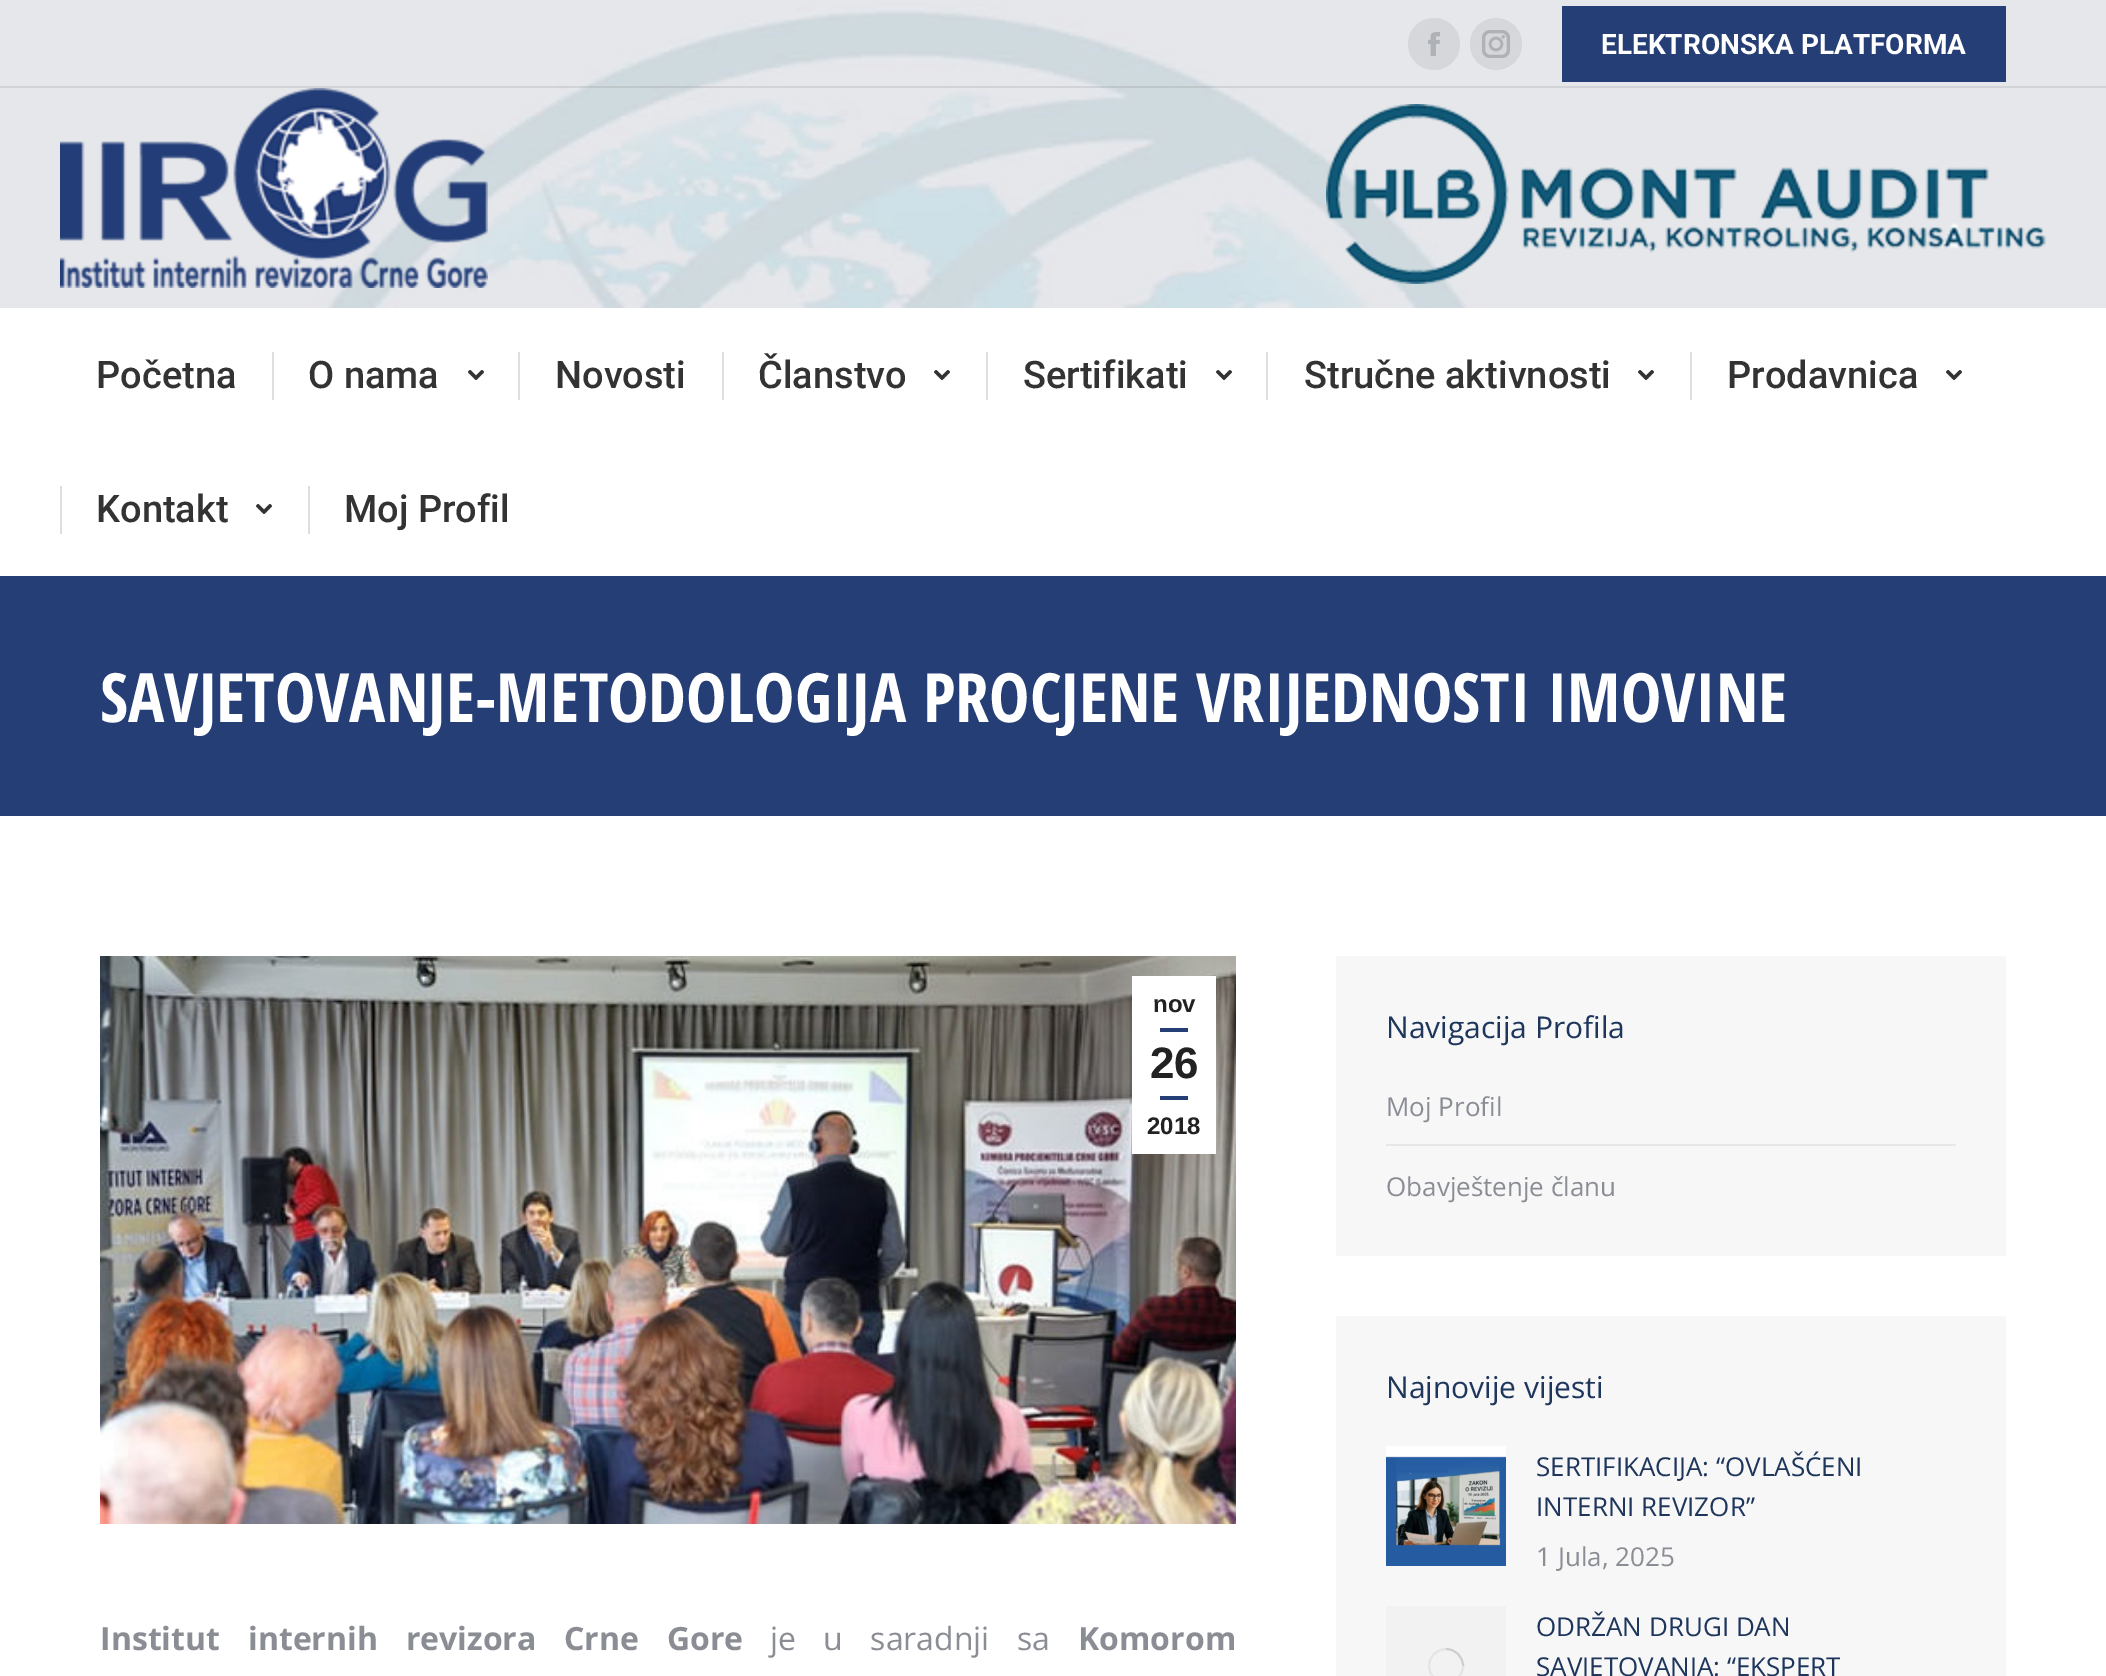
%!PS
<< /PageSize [2106 1676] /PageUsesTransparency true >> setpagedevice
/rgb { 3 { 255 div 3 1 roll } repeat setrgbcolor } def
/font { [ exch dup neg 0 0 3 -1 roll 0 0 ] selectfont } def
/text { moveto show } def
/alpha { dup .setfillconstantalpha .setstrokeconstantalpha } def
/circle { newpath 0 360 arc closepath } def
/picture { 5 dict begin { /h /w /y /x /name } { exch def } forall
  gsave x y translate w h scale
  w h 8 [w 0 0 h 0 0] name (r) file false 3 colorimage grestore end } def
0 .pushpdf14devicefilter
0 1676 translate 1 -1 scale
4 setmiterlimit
255 255 255 rgb
0 0 2106 1676 rectfill
(img_01.rgb) 0 0 2106 308 picture
214 215 219 rgb
1434 44 26 circle fill
(img_02.rgb) 1428 32 12 24 picture
1496 44 26 circle fill
(img_03.rgb) 1482 30 28 28 picture
37 62 118 rgb
1562 6 444 76 rectfill
0.11 alpha
51 51 51 rgb
0 86 2106 2 rectfill
1 alpha
(img_04.rgb) 60 88 428 200 picture
(img_05.rgb) 1326 104 720 180 picture
222 222 222 rgb
272 352 2 48 rectfill
(img_06.rgb) 468 370 16 10 picture
518 352 2 48 rectfill
722 352 2 48 rectfill
(img_06.rgb) 934 370 16 10 picture
986 352 2 48 rectfill
(img_06.rgb) 1216 370 16 10 picture
1266 352 2 48 rectfill
(img_06.rgb) 1638 370 16 10 picture
1690 352 2 48 rectfill
(img_06.rgb) 1946 370 16 10 picture
60 486 2 48 rectfill
(img_06.rgb) 256 504 16 10 picture
308 486 2 48 rectfill
37 62 118 rgb
0 576 2106 240 rectfill
(img_07.rgb) 100 956 1136 568 picture
255 255 255 rgb
1132 976 84 178 rectfill
37 62 118 rgb
1160 1028 28 4 rectfill
1160 1096 28 4 rectfill
247 247 248 rgb
1336 956 670 300 rectfill
231 231 233 rgb
1386 1144 570 2 rectfill
247 247 248 rgb
1336 1316 670 360 rectfill
(img_08.rgb) 1386 1446 120 120 picture
242 242 243 rgb
1386 1606 120 70 rectfill
228 228 230 rgb
1.9 setlinewidth
1446 1666 17 circle stroke
0.25 alpha
139 141 148 rgb
1463 1666 moveto 0 -9.5 -7.5 -17 -17 -17 rcurveto stroke
/Roboto-Bold 28 font
1 alpha
255 255 255 rgb
(ELEKTRONSKA PLATFORMA) 1601 54 text
/Roboto-Medium 38 font
51 51 51 rgb
(Početna) 96 388 text
(O nama) 308 388 text
(Novosti) 555 388 text
(Članstvo) 758 388 text
(Sertifikati) 1023 388 text
(Stručne aktivnosti) 1304 388 text
(Prodavnica) 1727 388 text
(Kontakt) 96 522 text
(Moj Profil) 344 522 text
/OpenSansCondensed-Bold 68 font
255 255 255 rgb
(SAVJETOVANJE-METODOLOGIJA PROCJENE VRIJEDNOSTI IMOVINE) 100 722 text
/LiberationSans-Bold 24 font
34 34 34 rgb
(nov) 1153 1012 text
/LiberationSans-Bold 44 font
(26) 1150 1078 text
/LiberationSans-Bold 24 font
(2018) 1147 1134 text
/OpenSans-Bold 32 font
139 141 148 rgb
100 1650 moveto 19.5 0 32 (Institut internih revizora Crne Gore) widthshow
/OpenSans-Regular 32 font
770 1650 moveto 19 0 32 (je u saradnji sa) widthshow
/OpenSans-Bold 32 font
(Komorom) 1078 1650 text
/OpenSans-Regular 30 font
31 54 92 rgb
(Navigacija Profila) 1386 1038 text
/OpenSans-Regular 26 font
139 141 148 rgb
(Moj Profil) 1386 1116 text
(Obavještenje članu) 1386 1196 text
/OpenSans-Regular 30 font
31 54 92 rgb
(Najnovije vijesti) 1386 1398 text
/OpenSans-Regular 26 font
(SERTIFIKACIJA: “OVLAŠĆENI) 1536 1476 text
(INTERNI REVIZOR”) 1536 1516 text
139 141 148 rgb
(1 Jula, 2025) 1536 1566 text
31 54 92 rgb
(ODRŽAN DRUGI DAN) 1536 1636 text
(SAVJETOVANJA: “EKSPERT) 1536 1676 text
.poppdf14devicefilter showpage
